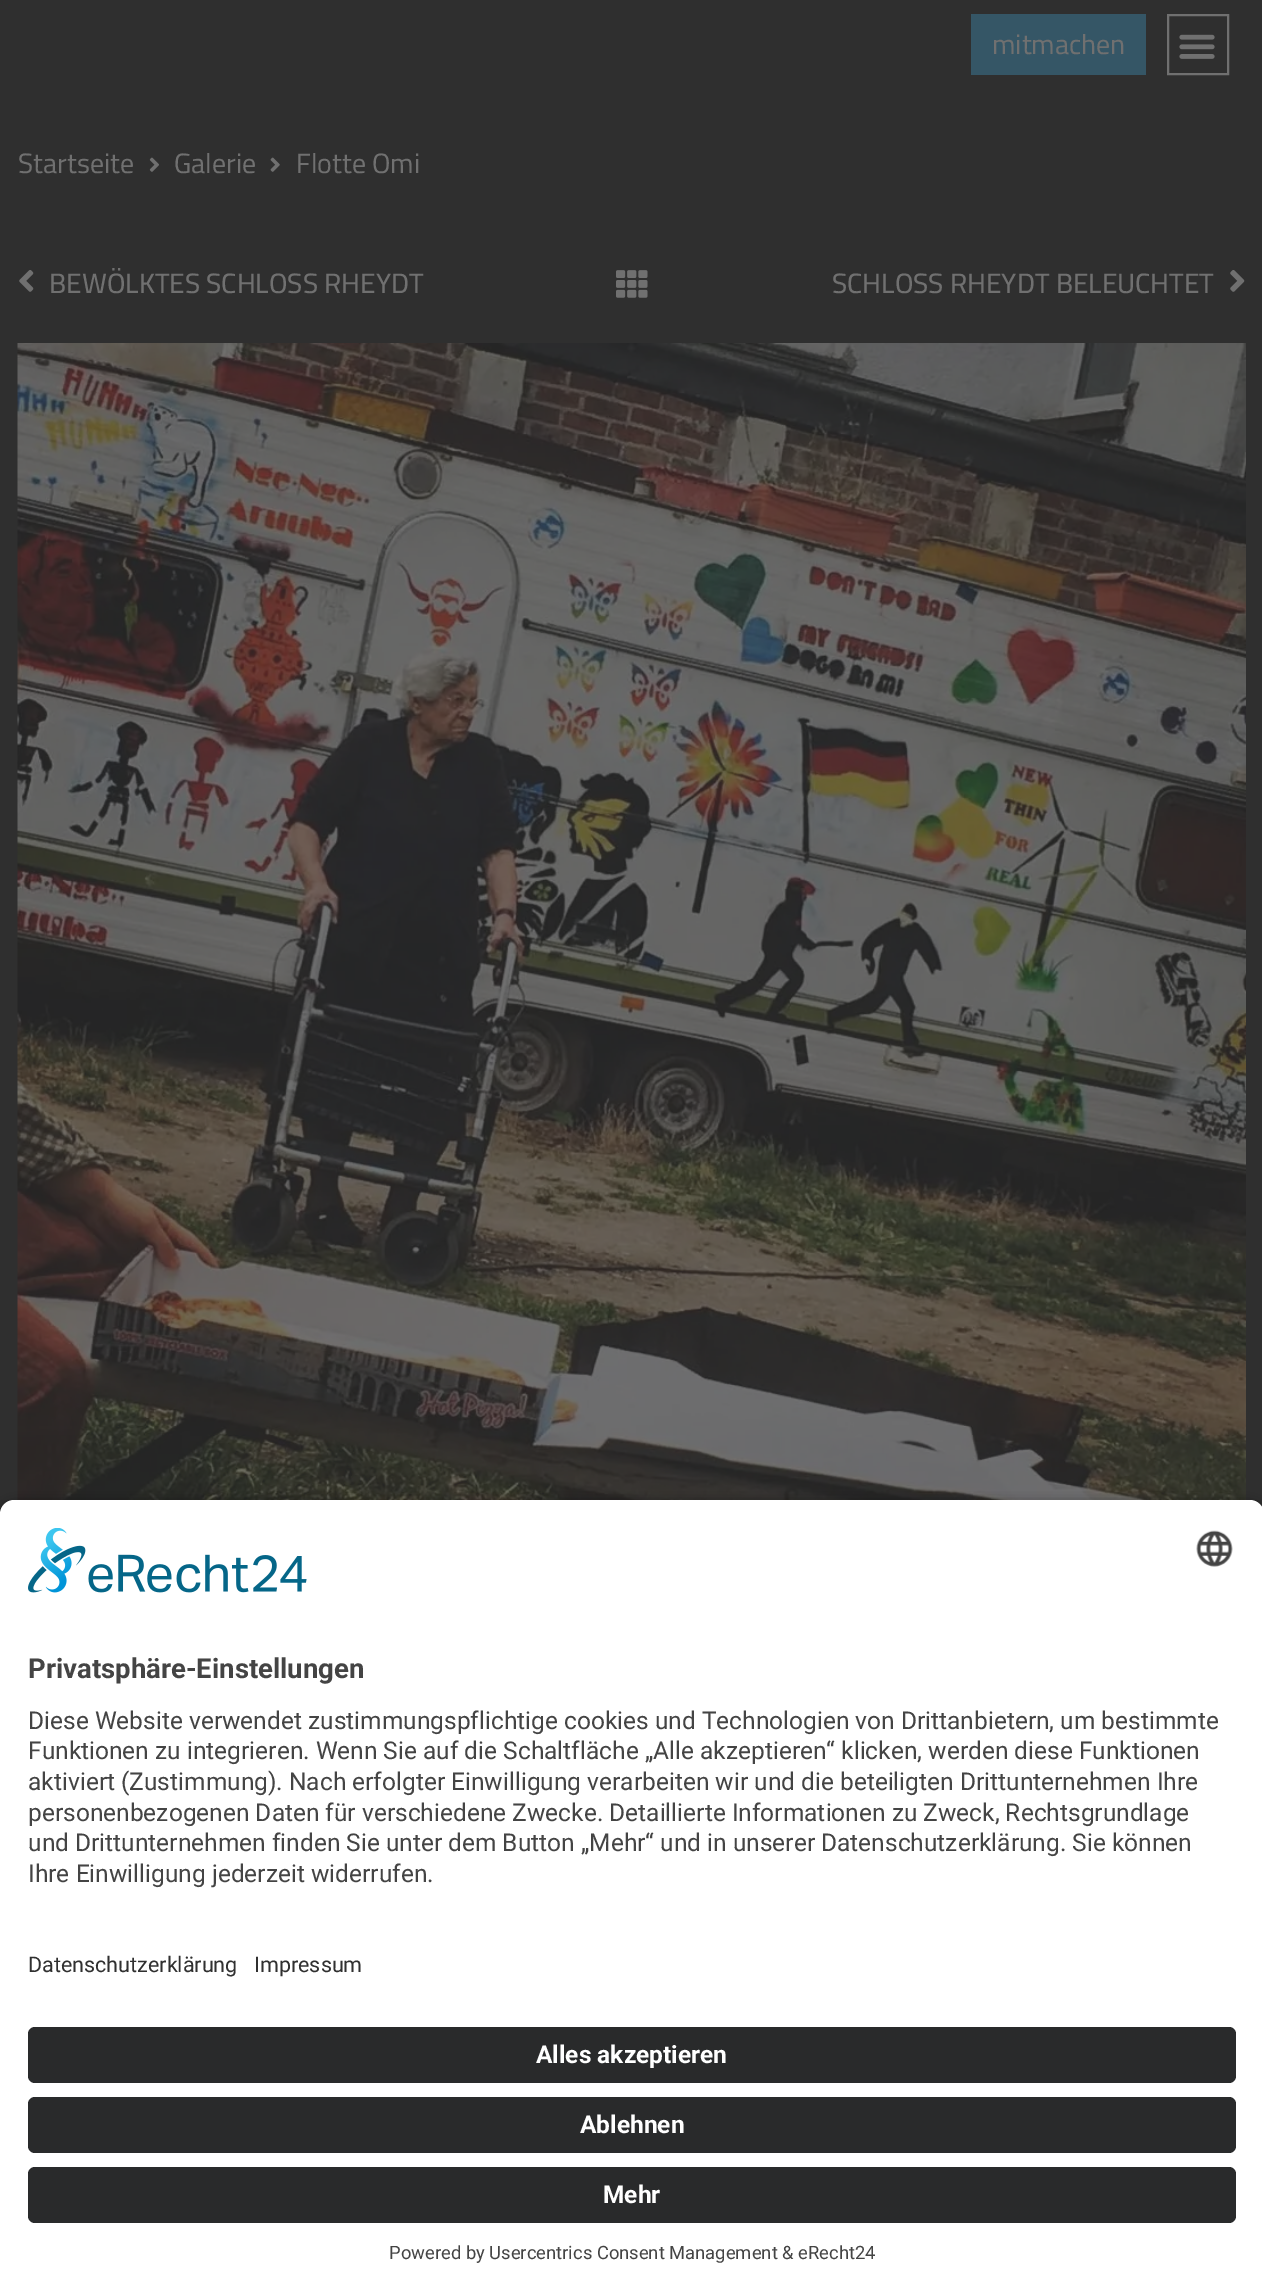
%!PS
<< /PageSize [1262 2292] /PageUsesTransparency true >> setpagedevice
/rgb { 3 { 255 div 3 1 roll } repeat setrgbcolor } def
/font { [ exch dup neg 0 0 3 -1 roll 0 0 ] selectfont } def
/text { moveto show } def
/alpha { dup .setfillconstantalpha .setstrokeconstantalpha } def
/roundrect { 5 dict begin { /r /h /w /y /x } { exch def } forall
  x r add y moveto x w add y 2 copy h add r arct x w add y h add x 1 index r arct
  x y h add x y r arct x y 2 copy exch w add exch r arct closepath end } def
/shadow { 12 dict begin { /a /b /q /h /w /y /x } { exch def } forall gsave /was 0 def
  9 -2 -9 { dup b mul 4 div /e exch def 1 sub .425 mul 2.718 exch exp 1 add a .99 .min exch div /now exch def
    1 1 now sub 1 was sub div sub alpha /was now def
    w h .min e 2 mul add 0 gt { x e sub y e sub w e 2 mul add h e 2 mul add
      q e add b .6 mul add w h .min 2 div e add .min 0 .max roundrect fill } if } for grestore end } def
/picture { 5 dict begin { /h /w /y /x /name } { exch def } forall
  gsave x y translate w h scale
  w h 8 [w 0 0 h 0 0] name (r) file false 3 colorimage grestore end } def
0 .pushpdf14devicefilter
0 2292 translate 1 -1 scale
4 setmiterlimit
47 47 47 rgb
0 0 1262 2292 rectfill
53 86 102 rgb
971 14 175 61 rectfill
112 112 112 rgb
2 setlinewidth
1168 15 60 59 rectstroke
(img_01.rgb) 1179 34 36 25 picture
(img_02.rgb) 149 157 10 15 picture
(img_03.rgb) 270 157 10 15 picture
(img_04.rgb) 19 270 15 22 picture
(img_05.rgb) 616 270 32 28 picture
(img_06.rgb) 1230 270 15 22 picture
(img_07.rgb) 17 343 1229 1157 picture
0 0 0 rgb
0 1505 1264 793 14 6 0.8 shadow
255 255 255 rgb
14 1500 moveto 1236 0 rlineto 7.5 0 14 6.5 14 14 rcurveto 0 411 rlineto -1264 0 rlineto 0 -411 rlineto 0 -7.5 6.5 -14 14 -14 rcurveto closepath fill
(img_08.rgb) 28 1528 279 65 picture
(img_09.rgb) 1196 1530 37 37 picture
0 1925 1262 367 rectfill
41 42 43 rgb
28 2027 1208 56 7 roundrect fill
28 2097 1208 56 7 roundrect fill
28 2167 1208 56 7 roundrect fill
/Cairo-Regular 28 font
112 112 112 rgb
(mitmachen) 992 54 text
(Startseite) 18 173 text
(Galerie) 174 173 text
(Flotte Omi) 296 173 text
/Cairo-Medium 28 font
(BEWÖLKTES SCHLOSS RHEYDT) 49 293 text
(SCHLOSS RHEYDT BELEUCHTET) 832 293 text
/Roboto-Bold 27.5 font
68 68 68 rgb
(Privatsphäre-Einstellungen) 28 1678 text
/Roboto-Regular 24.5 font
(Diese Website verwendet zustimmungspflichtige cookies und Technologien von Drittanbietern, um bestimmte) 28 1729 text
(Funktionen zu integrieren. Wenn Sie auf die Schaltfläche „Alle akzeptieren“ klicken, werden diese Funktionen) 28 1759 text
(aktiviert \(Zustimmung\). Nach erfolgter Einwilligung verarbeiten wir und die beteiligten Drittunternehmen Ihre) 28 1790 text
(personenbezogenen Daten für verschiedene Zwecke. Detaillierte Informationen zu Zweck, Rechtsgrundlage) 28 1821 text
(und Drittunternehmen finden Sie unter dem Button „Mehr“ und in unserer Datenschutzerklärung. Sie können) 28 1851 text
(Ihre Einwilligung jederzeit widerrufen.) 28 1882 text
/Roboto-Regular 21.5 font
48 48 48 rgb
(Datenschutzerklärung) 28 1972 text
(Impressum) 254 1972 text
/Roboto-Bold 24.5 font
255 255 255 rgb
(Alles akzeptieren) 536 2063 text
(Ablehnen) 580 2133 text
(Mehr) 603 2203 text
/Roboto-Regular 18.4 font
68 68 68 rgb
(Powered by Usercentrics Consent Management & eRecht24) 389 2259 text
.poppdf14devicefilter showpage
